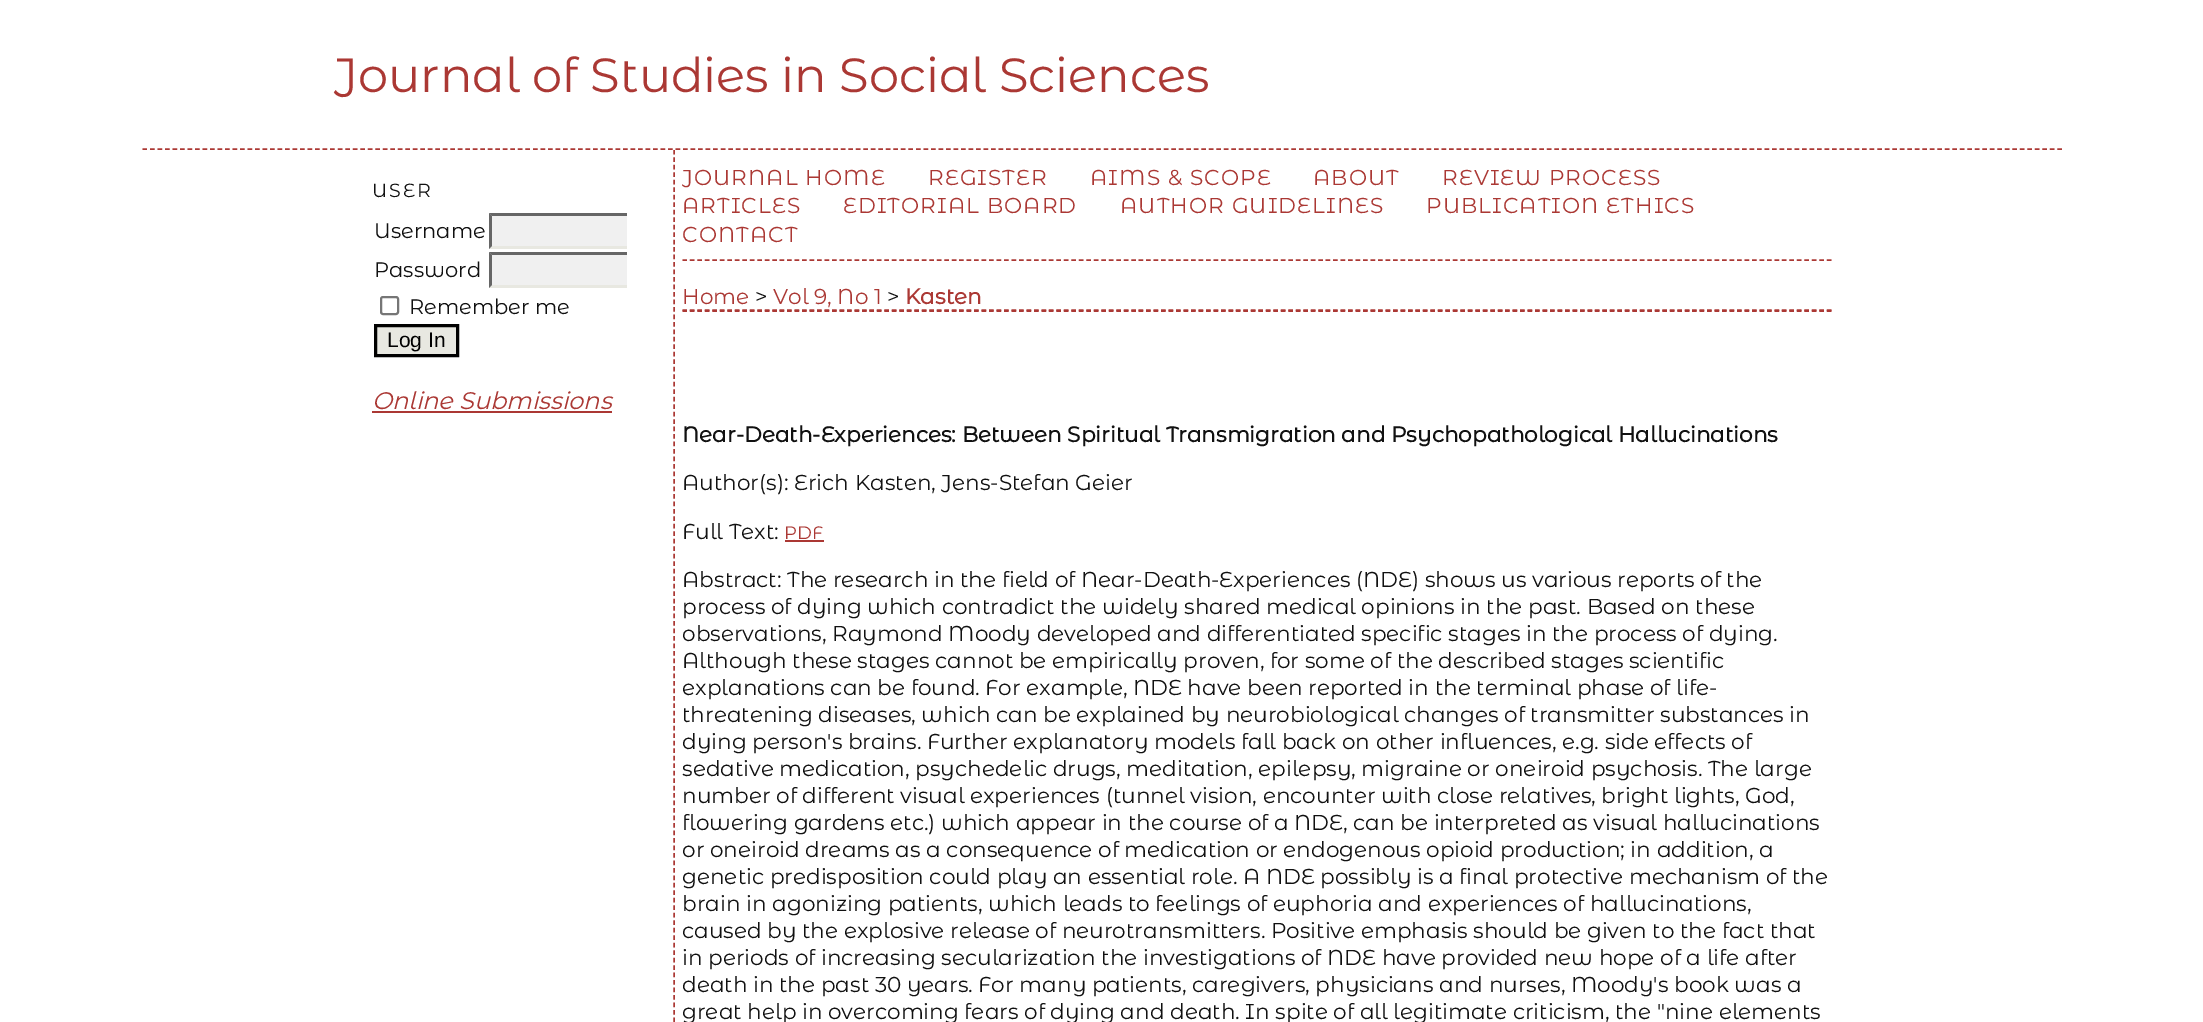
%!PS
<< /PageSize [2203 1022] >> setpagedevice
/rgb { 3 { 255 div 3 1 roll } repeat setrgbcolor } def
/font { [ exch dup neg 0 0 3 -1 roll 0 0 ] selectfont } def
/text { moveto show } def
/roundrect { 5 dict begin { /r /h /w /y /x } { exch def } forall
  x r add y moveto x w add y 2 copy h add r arct x w add y h add x 1 index r arct
  x y h add x y r arct x y 2 copy exch w add exch r arct closepath end } def
0 1022 translate 1 -1 scale
4 setmiterlimit
255 255 255 rgb
0 0 2203 1022 rectfill
171 56 52 rgb
1.5 setlinewidth
[4.5 3.01] 0 setdash
142.5 149 moveto 1920 0 rlineto stroke
240 240 240 rgb
489 213 138 36 rectfill
gsave
372 150 255 314 rectclip
102 102 102 rgb
489 213 moveto 211 0 rlineto -2 3 rlineto -206 0 rlineto closepath fill
232 232 225 rgb
700 249 moveto -211 0 rlineto 3 -3 rlineto 206 0 rlineto closepath fill
grestore
102 102 102 rgb
489 249 moveto 0 -36 rlineto 3 3 rlineto 0 30 rlineto closepath fill
240 240 240 rgb
489 252 138 36 rectfill
gsave
372 150 255 314 rectclip
102 102 102 rgb
489 252 moveto 211 0 rlineto -2 3 rlineto -206 0 rlineto closepath fill
232 232 225 rgb
700 288 moveto -211 0 rlineto 3 -3 rlineto 206 0 rlineto closepath fill
grestore
102 102 102 rgb
489 288 moveto 0 -36 rlineto 3 3 rlineto 0 30 rlineto closepath fill
118 118 118 rgb
2 setlinewidth
[] 0 setdash
381 297 17 17 2 roundrect stroke
232 232 225 rgb
375.5 325.5 moveto 82 0 rlineto 0 30 rlineto -82 0 rlineto closepath gsave fill grestore
0 0 0 rgb
3 setlinewidth
stroke
171 56 52 rgb
372 411 240 2 rectfill
1.5 setlinewidth
[4.5 2.98] 0 setdash
674 150 moveto 0 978 rlineto stroke
682.5 260 moveto 1149 0 rlineto stroke
682.5 310 moveto 1149 0 rlineto stroke
682.5 311 moveto 1149 0 rlineto stroke
785 540 39 2 rectfill
/MontserratAlternates-Regular 48 font
(Journal of Studies in Social Sciences) 334 92 text
/MontserratAlternates-Regular 19 font
17 17 17 rgb
372 197 moveto 2 0 (USER) ashow
/MontserratAlternates-Regular 21 font
(Username) 374 238 text
(Password) 374 277 text
(Remember me) 409 314 text
/LiberationSans-Regular 21 font
0 0 0 rgb
(Log In) 387 347 text
/MontserratAlternates-Italic 24 font
171 56 52 rgb
(Online Submissions) 372 409 text
/MontserratAlternates-Regular 21.6 font
682 185 moveto 1.1 0 (JOURNAL HOME) ashow
928 185 moveto 1.1 0 (REGISTER) ashow
1090 185 moveto 1.1 0 (AIMS & SCOPE) ashow
1313 185 moveto 1.1 0 (ABOUT) ashow
1442 185 moveto 1.1 0 (REVIEW PROCESS) ashow
682 213 moveto 1.1 0 (ARTICLES) ashow
843 213 moveto 1.1 0 (EDITORIAL BOARD) ashow
1120 213 moveto 1.1 0 (AUTHOR GUIDELINES) ashow
1426 213 moveto 1.1 0 (PUBLICATION ETHICS) ashow
682 242 moveto 1.1 0 (CONTACT) ashow
(Home) 682 304 text
17 17 17 rgb
(>) 755 304 text
171 56 52 rgb
(Vol 9, No 1) 773 304 text
17 17 17 rgb
(>) 887 304 text
/MontserratAlternates-Bold 21.6 font
171 56 52 rgb
(Kasten) 905 304 text
17 17 17 rgb
(Near-Death-Experiences: Between Spiritual Transmigration and Psychopathological Hallucinations) 682 442 text
/MontserratAlternates-Regular 21.6 font
(Author\(s\): Erich Kasten, Jens-Stefan Geier) 682 490 text
(Full Text:) 682 539 text
/MontserratAlternates-Regular 18 font
171 56 52 rgb
(PDF) 784 539 text
/MontserratAlternates-Regular 21.6 font
17 17 17 rgb
(Abstract: The research in the field of Near-Death-Experiences \(NDE\) shows us various reports of the) 682 587 text
(process of dying which contradict the widely shared medical opinions in the past. Based on these) 682 614 text
(observations, Raymond Moody developed and differentiated specific stages in the process of dying.) 682 641 text
(Although these stages cannot be empirically proven, for some of the described stages scientific) 682 668 text
(explanations can be found. For example, NDE have been reported in the terminal phase of life-) 682 695 text
(threatening diseases, which can be explained by neurobiological changes of transmitter substances in) 682 722 text
(dying person's brains. Further explanatory models fall back on other influences, e.g. side effects of) 682 749 text
(sedative medication, psychedelic drugs, meditation, epilepsy, migraine or oneiroid psychosis. The large) 682 776 text
(number of different visual experiences \(tunnel vision, encounter with close relatives, bright lights, God,) 682 803 text
(flowering gardens etc.\) which appear in the course of a NDE, can be interpreted as visual hallucinations) 682 830 text
(or oneiroid dreams as a consequence of medication or endogenous opioid production; in addition, a) 682 857 text
(genetic predisposition could play an essential role. A NDE possibly is a final protective mechanism of the) 682 884 text
(brain in agonizing patients, which leads to feelings of euphoria and experiences of hallucinations,) 682 911 text
(caused by the explosive release of neurotransmitters. Positive emphasis should be given to the fact that) 682 938 text
(in periods of increasing secularization the investigations of NDE have provided new hope of a life after) 682 965 text
(death in the past 30 years. For many patients, caregivers, physicians and nurses, Moody's book was a) 682 992 text
(great help in overcoming fears of dying and death. In spite of all legitimate criticism, the "nine elements) 682 1019 text
showpage
